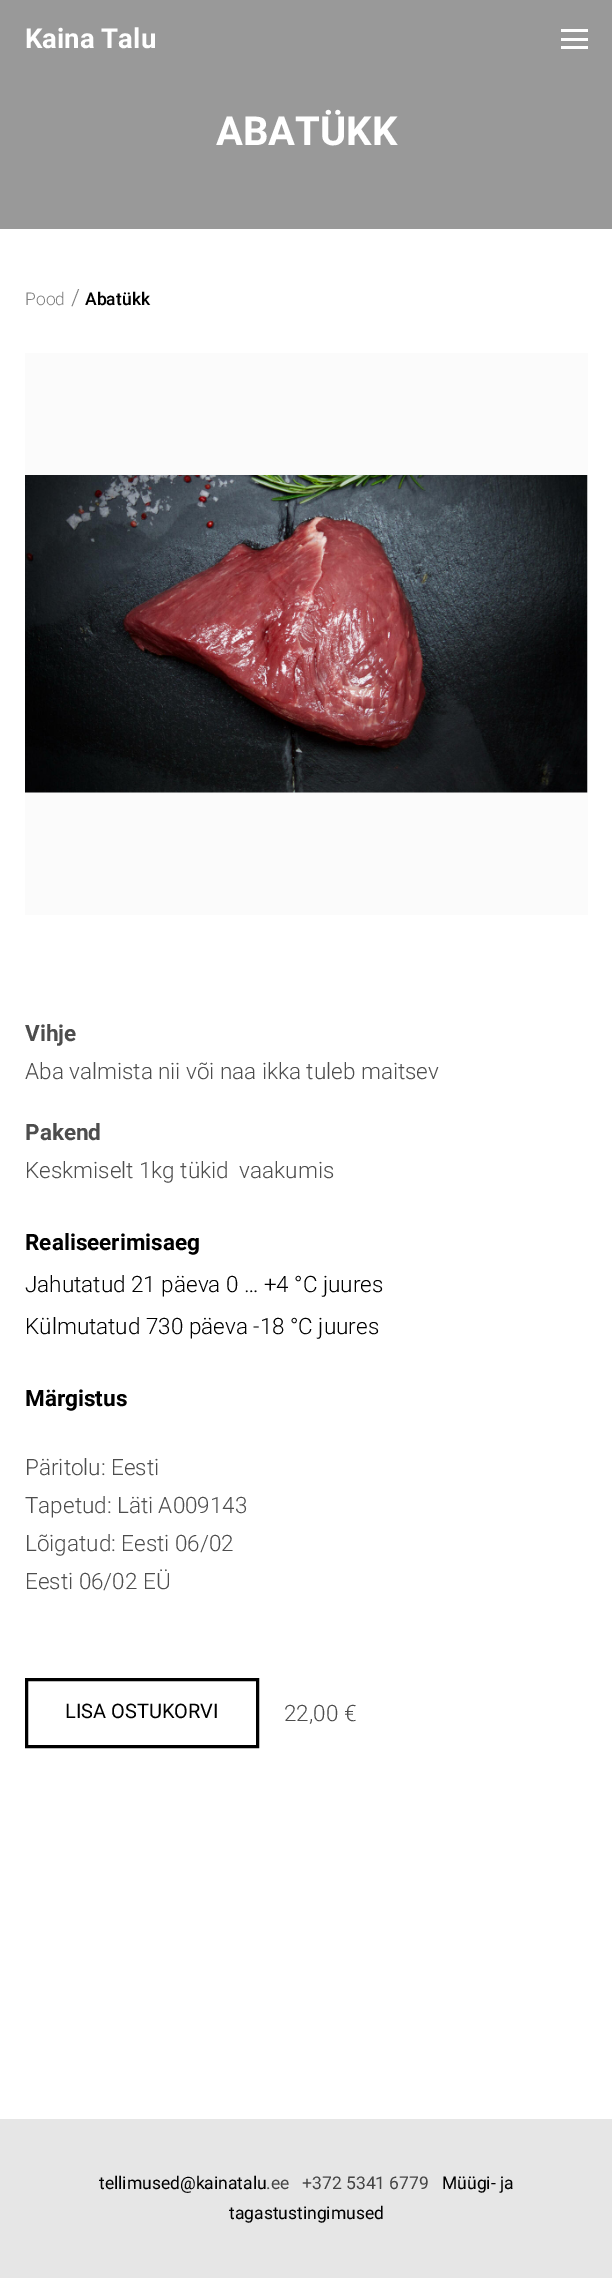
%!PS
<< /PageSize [612 2278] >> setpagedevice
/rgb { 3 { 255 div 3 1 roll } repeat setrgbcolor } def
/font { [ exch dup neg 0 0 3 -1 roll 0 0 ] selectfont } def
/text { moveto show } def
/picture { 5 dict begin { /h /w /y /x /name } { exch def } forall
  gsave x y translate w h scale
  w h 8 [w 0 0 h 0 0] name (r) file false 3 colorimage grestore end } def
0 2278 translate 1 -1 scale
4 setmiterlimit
255 255 255 rgb
0 0 612 2278 rectfill
153 153 153 rgb
0 0 612 229 rectfill
255 255 255 rgb
561 29 27 3 rectfill
561 38 27 3 rectfill
561 46 27 3 rectfill
251 251 251 rgb
25 353 563 562 rectfill
(img_01.rgb) 25 475 563 318 picture
0 0 0 rgb
3 setlinewidth
26.5 1679.5 231 67 rectstroke
230 230 230 rgb
0 2119 612 159 rectfill
/Roboto-Bold 27.5 font
255 255 255 rgb
(Kaina Talu) 25 48 text
/Roboto-Bold 40 font
(ABATÜKK) 216 145 text
/Roboto-Light 17.5 font
128 128 128 rgb
(Pood) 25 305 text
/Roboto-Light 22.5 font
(/) 71 305 text
/Roboto-Medium 17.5 font
0 0 0 rgb
(Abatükk) 85 305 text
/Roboto-Bold 22.5 font
77 77 77 rgb
(Vihje) 25 1041 text
/Roboto-Light 22.5 font
(Aba valmista nii või naa ikka tuleb maitsev) 25 1079 text
/Roboto-Bold 22.5 font
(Pakend) 25 1140 text
/Roboto-Light 22.5 font
(Keskmiselt 1kg tükid  vaakumis) 25 1178 text
/Roboto-Bold 22.5 font
0 0 0 rgb
(Realiseerimisaeg) 25 1250 text
/Roboto-Light 22.5 font
(Jahutatud 21 päeva 0 … +4 °C juures) 25 1292 text
(Külmutatud 730 päeva -18 °C juures) 25 1334 text
/Roboto-Bold 22.5 font
(Märgistus) 25 1406 text
/Roboto-Light 22.5 font
77 77 77 rgb
(Päritolu: Eesti) 25 1475 text
(Tapetud: Läti A009143) 25 1513 text
(Lõigatud: Eesti 06/02) 25 1551 text
(Eesti 06/02 EÜ) 25 1589 text
/Roboto-Regular 20 font
0 0 0 rgb
(LISA OSTUKORVI) 65 1718 text
/Roboto-Light 22.5 font
77 77 77 rgb
(22,00 €) 284 1721 text
/Roboto-Regular 17.5 font
0 0 0 rgb
(tellimused@kainatalu) 99 2189 text
69 69 69 rgb
(.ee   +372 5341 6779) 266 2189 text
0 0 0 rgb
(Müügi- ja) 442 2189 text
(tagastustingimused) 229 2219 text
showpage
